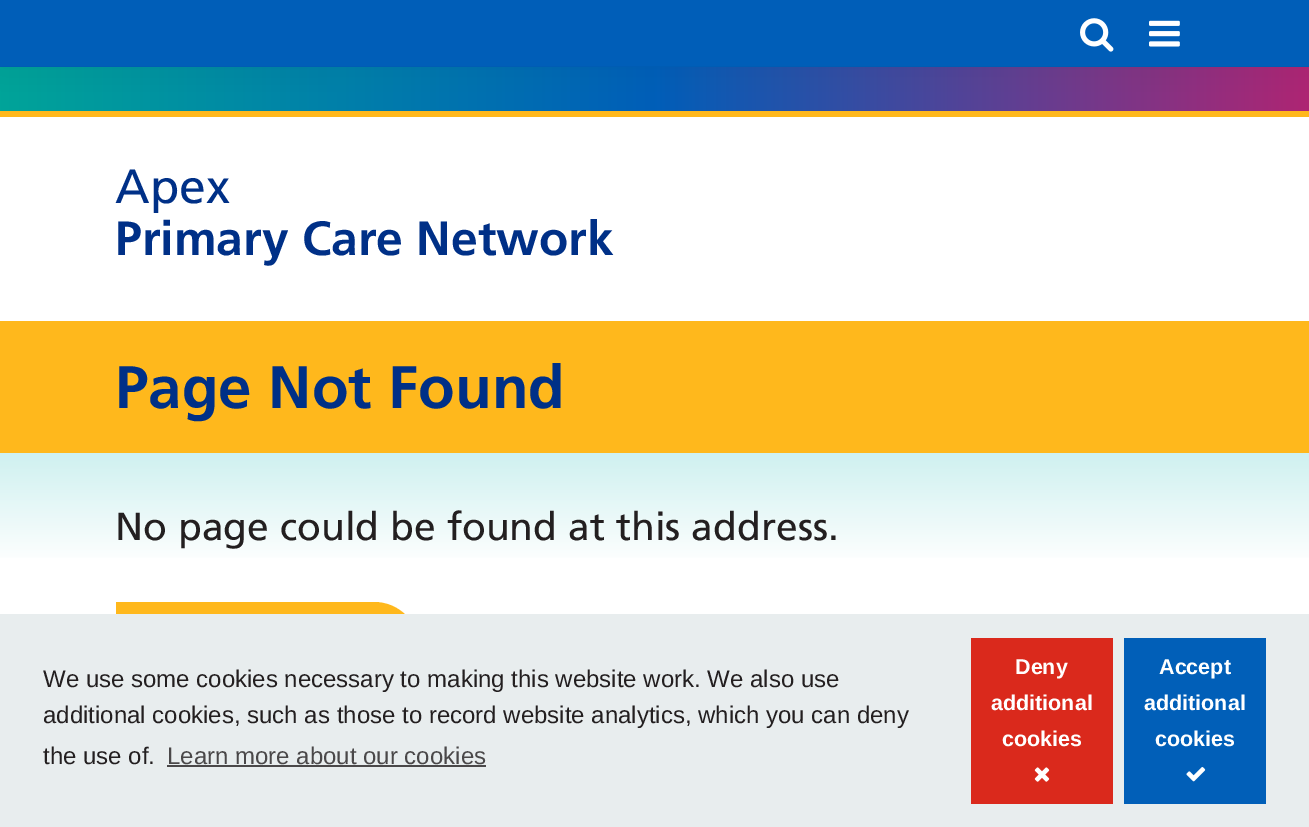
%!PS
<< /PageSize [1309 827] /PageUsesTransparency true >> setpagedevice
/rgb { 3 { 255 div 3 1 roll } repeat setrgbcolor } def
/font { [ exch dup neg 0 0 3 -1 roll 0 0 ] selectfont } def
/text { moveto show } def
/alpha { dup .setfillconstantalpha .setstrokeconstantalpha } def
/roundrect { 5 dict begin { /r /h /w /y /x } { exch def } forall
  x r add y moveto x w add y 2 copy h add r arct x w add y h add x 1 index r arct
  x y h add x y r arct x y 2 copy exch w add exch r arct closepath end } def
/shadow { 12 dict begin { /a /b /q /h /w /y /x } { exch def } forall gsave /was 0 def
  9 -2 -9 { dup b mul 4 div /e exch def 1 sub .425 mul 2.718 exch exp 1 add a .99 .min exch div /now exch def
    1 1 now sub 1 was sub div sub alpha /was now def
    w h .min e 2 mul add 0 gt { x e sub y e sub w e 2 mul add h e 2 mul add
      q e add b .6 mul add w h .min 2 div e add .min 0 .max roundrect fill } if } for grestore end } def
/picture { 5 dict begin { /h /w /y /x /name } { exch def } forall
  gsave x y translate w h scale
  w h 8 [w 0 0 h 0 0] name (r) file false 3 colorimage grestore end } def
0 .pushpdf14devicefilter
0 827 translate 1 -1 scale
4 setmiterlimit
255 255 255 rgb
0 0 1309 827 rectfill
gsave 0 67 moveto 1309 0 rlineto 0 44 rlineto -1309 0 rlineto closepath clip newpath
<< /ShadingType 2 /ColorSpace /DeviceRGB /Coords [0 89 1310 88] /Extend [true true] /Function << /FunctionType 3 /Domain [0 1] /Functions [<< /FunctionType 2 /Domain [0 1] /C0 [0 0.643 0.6] /C1 [0 0.369 0.722] /N 1 >> << /FunctionType 2 /Domain [0 1] /C0 [0 0.369 0.722] /C1 [0.682 0.145 0.451] /N 1 >>] /Bounds [0.5] /Encode [0 1 0 1] >> >> shfill grestore
255 184 28 rgb
0 111 1309 6 rectfill
0 94 184 rgb
0 66 1309 1 rectfill
0 0 0 rgb
0 0 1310 66 0 15 0.05 shadow
0 94 184 rgb
0 0 1309 66 rectfill
(img_01.rgb) 1080 18 34 34 picture
(img_02.rgb) 1149 20 31 27 picture
255 184 28 rgb
0 321 1309 132 rectfill
gsave 0 453 moveto 1309 0 rlineto 0 105 rlineto -1309 0 rlineto closepath clip newpath
<< /ShadingType 2 /ColorSpace /DeviceRGB /Coords [655 453 655 564] /Extend [true true] /Function << /FunctionType 2 /Domain [0 1] /C0 [0.812 0.945 0.941] /C1 [1 1 1] /N 1 >> >> shfill grestore
116 602 moveto 258 0 rlineto 25 0 45 20 45 45 rcurveto 0 37 rlineto -258 0 rlineto -25 0 -45 -20 -45 -45 rcurveto closepath fill
232 237 238 rgb
0 614 1309 213 rectfill
74 72 73 rgb
167 765 319 2 rectfill
218 41 28 rgb
971 638 142 166 rectfill
(img_03.rgb) 1034 767 16 15 picture
1 95 184 rgb
1124 638 142 166 rectfill
(img_04.rgb) 1186 767 20 15 picture
/Frutiger-Regular 48 font
0 48 135 rgb
(Apex) 115 203 text
/Frutiger-Bold 48 font
(Primary Care Network) 115 255 text
/Frutiger-Bold 60 font
(Page Not Found) 115 408 text
/Frutiger-Regular 39 font
35 31 32 rgb
(No page could be found at this address.) 115 540 text
/LiberationSans-Regular 24 font
(We use some cookies necessary to making this website work. We also use) 43 687 text
(additional cookies, such as those to record website analytics, which you can deny) 43 723 text
(the use of.) 43 764 text
74 72 73 rgb
(Learn more about our cookies) 167 764 text
/LiberationSans-Bold 21.5 font
255 255 255 rgb
(Deny) 1015 674 text
(additional) 991 710 text
(cookies) 1002 746 text
(Accept) 1159 674 text
(additional) 1144 710 text
(cookies) 1155 746 text
.poppdf14devicefilter showpage
